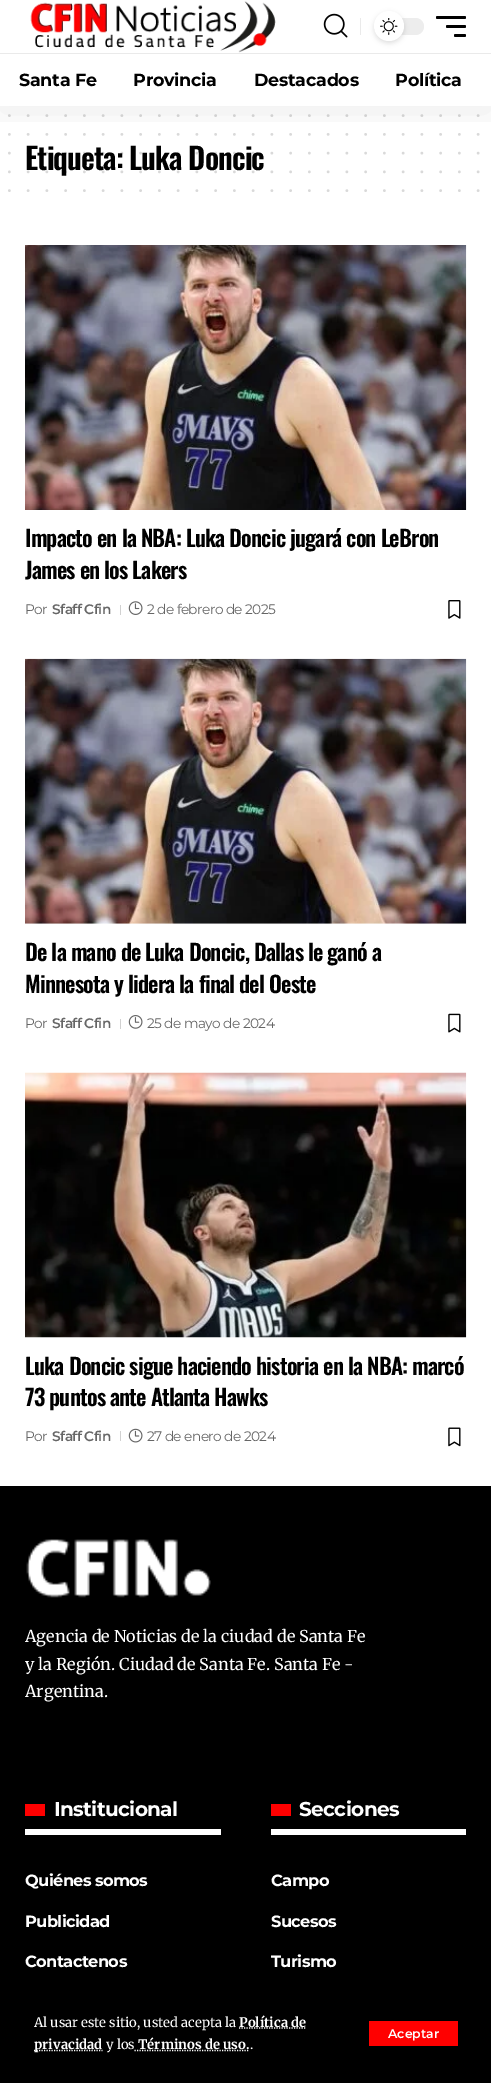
%!PS
<< /PageSize [491 2083] /PageUsesTransparency true >> setpagedevice
/rgb { 3 { 255 div 3 1 roll } repeat setrgbcolor } def
/font { [ exch dup neg 0 0 3 -1 roll 0 0 ] selectfont } def
/text { moveto show } def
/alpha { dup .setfillconstantalpha .setstrokeconstantalpha } def
/circle { newpath 0 360 arc closepath } def
/roundrect { 5 dict begin { /r /h /w /y /x } { exch def } forall
  x r add y moveto x w add y 2 copy h add r arct x w add y h add x 1 index r arct
  x y h add x y r arct x y 2 copy exch w add exch r arct closepath end } def
/shadow { 12 dict begin { /a /b /q /h /w /y /x } { exch def } forall gsave /was 0 def
  9 -2 -9 { dup b mul 4 div /e exch def 1 sub .425 mul 2.718 exch exp 1 add a .99 .min exch div /now exch def
    1 1 now sub 1 was sub div sub alpha /was now def
    w h .min e 2 mul add 0 gt { x e sub y e sub w e 2 mul add h e 2 mul add
      q e add b .6 mul add w h .min 2 div e add .min 0 .max roundrect fill } if } for grestore end } def
/picture { 5 dict begin { /h /w /y /x /name } { exch def } forall
  gsave x y translate w h scale
  w h 8 [w 0 0 h 0 0] name (r) file false 3 colorimage grestore end } def
0 .pushpdf14devicefilter
0 2083 translate 1 -1 scale
4 setmiterlimit
255 255 255 rgb
0 0 491 2083 rectfill
0 0 0 rgb
0 1486 491 597 rectfill
255 255 255 rgb
1.2 setlinewidth
[1.25 1.25] 0 setdash
239 2028 moveto 67.5 0 rlineto stroke
34 2050.5 moveto 68.5 0 rlineto stroke
134.5 2050.5 moveto 115 0 rlineto stroke
255 0 0 rgb
369 2021 89 25 rectfill
217 217 217 rgb
2.5 setlinewidth
1 setlinecap
[0 18.75] 0 setdash
9.4 115.6 moveto 469 0 rlineto stroke
9.4 134.4 moveto 469 0 rlineto stroke
9.4 190.6 moveto 469 0 rlineto stroke
(img_04.rgb) 25 245 442 265 picture
209 209 209 rgb
120 605 1 10 rectfill
(img_05.rgb) 128 601 15 14 picture
(img_06.rgb) 448 600 13 19 picture
(img_07.rgb) 25 658 442 266 picture
120 1019 1 10 rectfill
(img_08.rgb) 128 1015 15 14 picture
(img_09.rgb) 448 1013 13 20 picture
(img_10.rgb) 25 1072 442 266 picture
120 1431 1 10 rectfill
(img_11.rgb) 128 1428 15 15 picture
(img_12.rgb) 448 1427 13 20 picture
(img_13.rgb) 26 1539 185 59 picture
255 255 255 rgb
25 1829 196 6 rectfill
255 0 0 rgb
25 1804 20 12 rectfill
255 255 255 rgb
271 1829 195 6 rectfill
255 0 0 rgb
271 1804 20 12 rectfill
/Merriweather-Regular 13.1 font
255 255 255 rgb
(Al usar este sitio, usted acepta la) 34 2027 text
/Merriweather-Bold 13.1 font
(Política de) 239 2027 text
(privacidad) 34 2049 text
/Merriweather-Regular 13.1 font
(y los) 106 2049 text
/Merriweather-Bold 13.1 font
(Términos de uso.) 138 2049 text
/Merriweather-Regular 13.1 font
(.) 250 2049 text
/Montserrat-SemiBold 12.5 font
(Aceptar) 388 2038 text
/Oswald-SemiBold 30 font
0 0 0 rgb
25 170 moveto -0.9 0 (Etiqueta: Luka Doncic) ashow
0.15 alpha
9.4 153.1 moveto 469 0 rlineto stroke
gsave
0 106 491 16 rectclip
1 alpha
0 5 491 106 0 19 0.07 shadow
grestore
/Montserrat-Bold 17.5 font
1 alpha
395 86 moveto -0.25 0 (Política) ashow
254 86 moveto -0.25 0 (Destacados) ashow
133 86 moveto -0.25 0 (Provincia) ashow
19 86 moveto -0.25 0 (Santa Fe) ashow
234 234 234 rgb
0 53 491 1 rectfill
0 0 0 rgb
454 34 12 3 1.5 roundrect fill
446 25 20 3 1.5 roundrect fill
436 16 30 3 1.5 roundrect fill
237 237 237 rgb
374 18 50 17 8.5 roundrect fill
0 0 0 rgb
374 13 30 30 15 2.5 0.12 shadow
255 255 255 rgb
389 26 15 circle fill
(img_03.rgb) 380 18 18 17 picture
234 234 234 rgb
360 18 1 17 rectfill
(img_02.rgb) 323 13 25 25 picture
(img_01.rgb) 30 1 246 52 picture
0.15 alpha
0 0 0 rgb
9.4 171.9 moveto 469 0 rlineto stroke
/Oswald-SemiBold 22.5 font
1 alpha
25 547 moveto -0.82 0 (Impacto en la NBA: Luka Doncic jugará con LeBron) ashow
25 579 moveto -0.82 0 (James en los Lakers) ashow
/Montserrat-Regular 13.75 font
102 102 102 rgb
25 614 moveto -0.6 0 (Por) ashow
/Montserrat-SemiBold 13.75 font
52 614 moveto -0.6 0 (Sfaff Cfin) ashow
/Montserrat-Regular 13.75 font
147 614 moveto -0.6 0 (2 de febrero de 2025) ashow
/Oswald-SemiBold 22.5 font
0 0 0 rgb
25 961 moveto -0.82 0 (De la mano de Luka Doncic, Dallas le ganó a) ashow
25 993 moveto -0.82 0 (Minnesota y lidera la final del Oeste) ashow
/Montserrat-Regular 13.75 font
102 102 102 rgb
25 1028 moveto -0.6 0 (Por) ashow
/Montserrat-SemiBold 13.75 font
52 1028 moveto -0.6 0 (Sfaff Cfin) ashow
/Montserrat-Regular 13.75 font
147 1028 moveto -0.6 0 (25 de mayo de 2024) ashow
/Oswald-SemiBold 22.5 font
0 0 0 rgb
25 1375 moveto -0.82 0 (Luka Doncic sigue haciendo historia en la NBA: marcó) ashow
25 1406 moveto -0.82 0 (73 puntos ante Atlanta Hawks) ashow
/Montserrat-Regular 13.75 font
102 102 102 rgb
25 1441 moveto -0.6 0 (Por) ashow
/Montserrat-SemiBold 13.75 font
52 1441 moveto -0.6 0 (Sfaff Cfin) ashow
/Montserrat-Regular 13.75 font
147 1441 moveto -0.6 0 (27 de enero de 2024) ashow
/Merriweather-Regular 16.25 font
255 255 255 rgb
(Agencia de Noticias de la ciudad de Santa Fe) 25 1642 text
(y la Región. Ciudad de Santa Fe. Santa Fe -) 25 1670 text
(Argentina.) 25 1697 text
/Montserrat-Bold 20 font
54 1816 moveto -0.6 0 (Institucional) ashow
/Montserrat-Bold 16.25 font
25 1886 moveto -0.6 0 (Quiénes somos) ashow
25 1927 moveto -0.6 0 (Publicidad) ashow
25 1967 moveto -0.6 0 (Contactenos) ashow
/Montserrat-Bold 20 font
299 1816 moveto -0.6 0 (Secciones) ashow
/Montserrat-Bold 16.25 font
271 1886 moveto -0.6 0 (Campo) ashow
271 1927 moveto -0.6 0 (Sucesos) ashow
271 1967 moveto -0.6 0 (Turismo) ashow
.poppdf14devicefilter showpage
